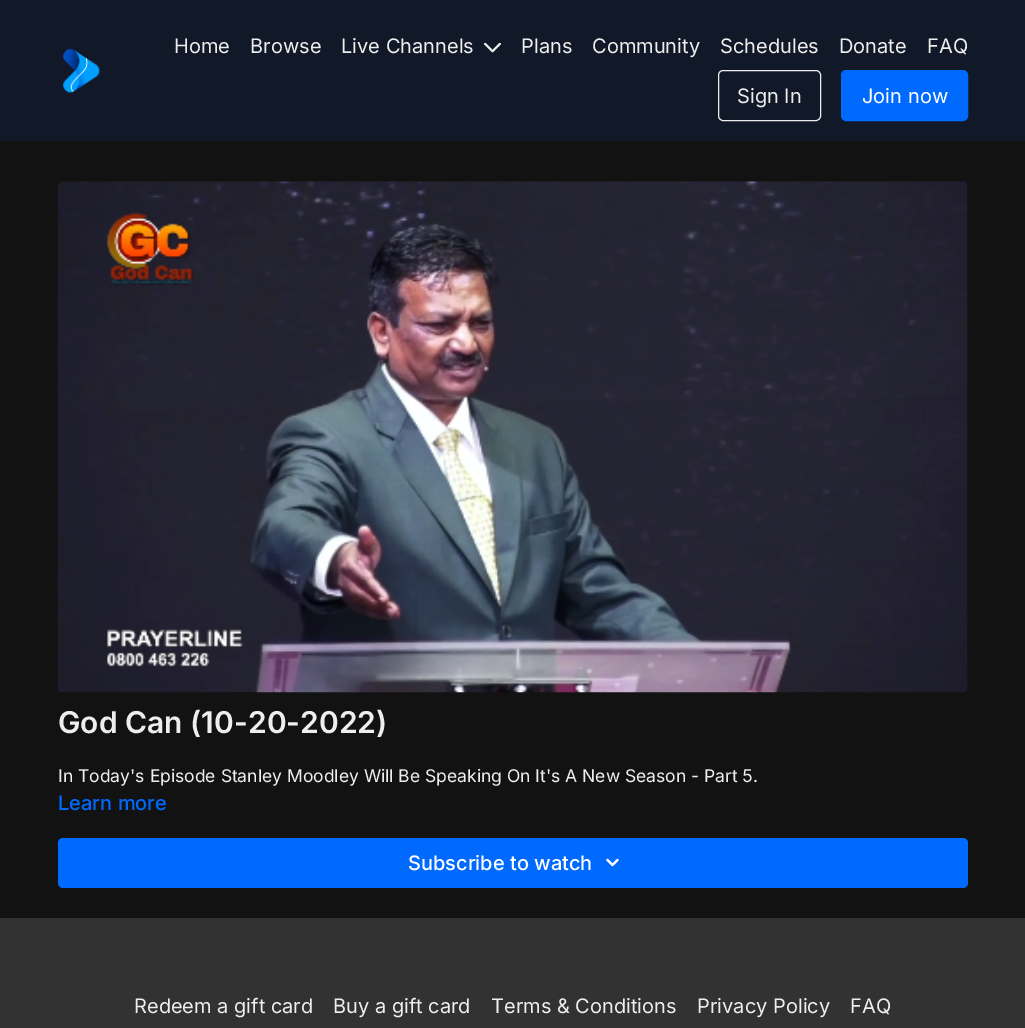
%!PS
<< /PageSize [1025 1028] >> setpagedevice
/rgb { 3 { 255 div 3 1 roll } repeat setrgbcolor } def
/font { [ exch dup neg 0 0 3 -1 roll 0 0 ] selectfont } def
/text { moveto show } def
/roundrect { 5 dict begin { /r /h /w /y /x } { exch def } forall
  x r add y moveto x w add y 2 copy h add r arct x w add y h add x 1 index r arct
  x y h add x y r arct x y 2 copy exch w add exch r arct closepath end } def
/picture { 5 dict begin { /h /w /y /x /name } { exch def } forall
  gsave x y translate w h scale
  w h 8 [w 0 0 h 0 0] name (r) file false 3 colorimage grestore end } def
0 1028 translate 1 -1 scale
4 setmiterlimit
18 18 18 rgb
0 0 1025 1028 rectfill
17 24 39 rgb
0 0 1025 141 rectfill
(img_01.rgb) 63 48 37 45 picture
(img_02.rgb) 484 43 17 10 picture
238 238 238 rgb
718.5 70.5 102 50 4.5 roundrect stroke
0 106 255 rgb
841.5 70.5 126 50 4.5 roundrect gsave fill grestore
stroke
(img_03.rgb) 57 181 911 512 picture
58 838 910 50 5 roundrect fill
(img_04.rgb) 606 858 13 9 picture
50 50 50 rgb
0 918 1025 110 rectfill
/Inter-Regular 20 font
238 238 238 rgb
(Home) 174 53 text
(Browse) 250 53 text
(Live Channels) 341 53 text
(Plans) 521 53 text
(Community) 592 53 text
(Schedules) 720 53 text
(Donate) 839 53 text
(FAQ) 927 53 text
(Sign In) 737 103 text
255 255 255 rgb
(Join now) 862 103 text
/Inter-SemiBold 30 font
238 238 238 rgb
(God Can \(10-20-2022\)) 58 733 text
/Inter-Regular 17.5 font
(In Today's Episode Stanley Moodley Will Be Speaking On It's A New Season - Part 5.) 58 782 text
/Inter-Medium 20 font
0 106 255 rgb
(Learn more) 58 810 text
255 255 255 rgb
(Subscribe to watch) 408 870 text
/Inter-Regular 20 font
238 238 238 rgb
(Redeem a gift card) 134 1013 text
(Buy a gift card) 333 1013 text
(Terms & Conditions) 491 1013 text
(Privacy Policy) 697 1013 text
(FAQ) 850 1013 text
showpage
